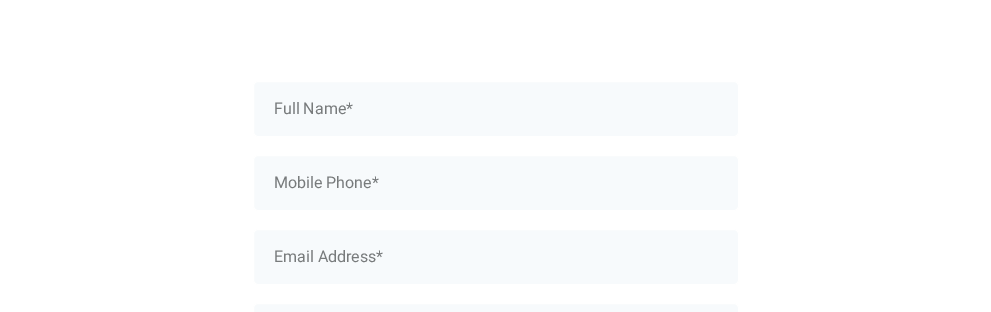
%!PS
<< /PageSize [991 312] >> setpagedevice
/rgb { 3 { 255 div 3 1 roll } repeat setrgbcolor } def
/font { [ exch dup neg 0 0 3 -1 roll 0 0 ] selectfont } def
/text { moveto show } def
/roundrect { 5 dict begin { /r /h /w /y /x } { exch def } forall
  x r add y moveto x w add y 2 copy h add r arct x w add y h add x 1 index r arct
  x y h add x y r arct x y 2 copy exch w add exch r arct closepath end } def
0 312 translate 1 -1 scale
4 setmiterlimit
255 255 255 rgb
0 0 991 312 rectfill
247 250 252 rgb
253.5 81.5 485 55 4.5 roundrect gsave fill grestore
255 255 255 rgb
stroke
247 250 252 rgb
253.5 155.5 485 55 4.5 roundrect gsave fill grestore
255 255 255 rgb
stroke
247 250 252 rgb
253.5 229.5 485 55 4.5 roundrect gsave fill grestore
255 255 255 rgb
stroke
247 250 252 rgb
253.5 303.5 485 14 4.5 roundrect gsave fill grestore
255 255 255 rgb
stroke
/Roboto-Regular 16 font
120 123 124 rgb
(Full Name*) 274 114 text
(Mobile Phone*) 274 188 text
(Email Address*) 274 262 text
showpage
